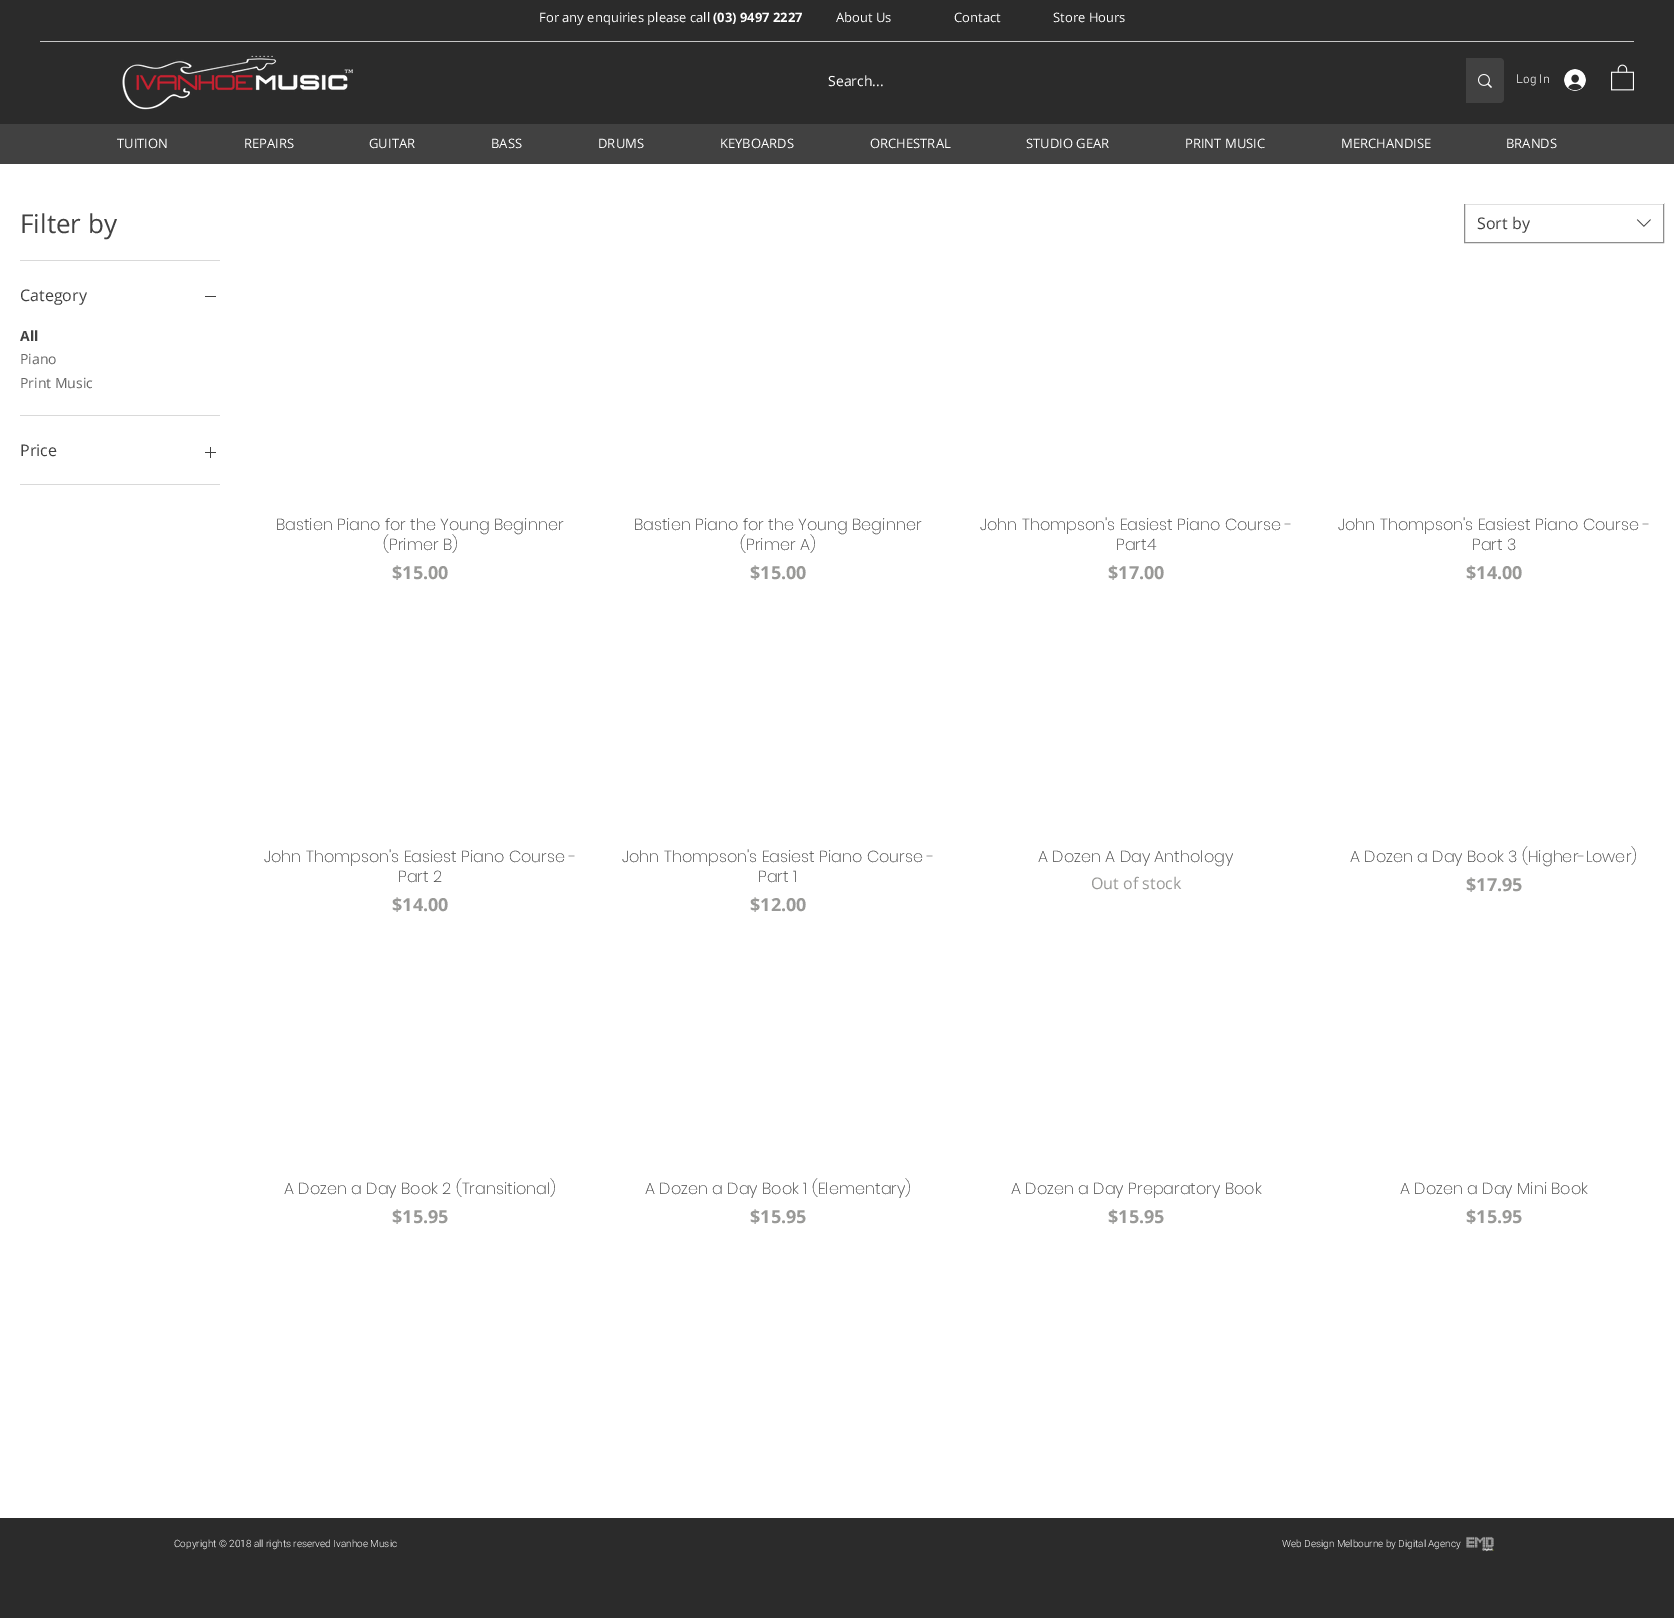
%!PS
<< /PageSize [1674 1618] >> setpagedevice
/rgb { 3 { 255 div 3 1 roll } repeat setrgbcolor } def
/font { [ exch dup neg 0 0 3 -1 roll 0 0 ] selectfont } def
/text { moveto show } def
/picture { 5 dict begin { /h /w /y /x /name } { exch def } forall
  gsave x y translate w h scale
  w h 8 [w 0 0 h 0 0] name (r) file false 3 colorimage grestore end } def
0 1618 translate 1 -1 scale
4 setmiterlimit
255 255 255 rgb
0 0 1674 1618 rectfill
43 43 43 rgb
0 0 1674 40 rectfill
0 40 1674 84 rectfill
199 199 199 rgb
40 41 1594 1 rectfill
(img_01.rgb) 122 55 231 55 picture
65 65 65 rgb
1466 58 moveto 34 0 rlineto 2 0 4 2 4 4 rcurveto 0 37 rlineto 0 2 -2 4 -4 4 rcurveto -34 0 rlineto closepath fill
(img_02.rgb) 1478 74 14 14 picture
(img_03.rgb) 1564 69 22 22 picture
(img_04.rgb) 1611 64 23 27 picture
0 124 1674 40 rectfill
141 141 141 rgb
1464.5 203.5 199 39 rectstroke
255 255 255 rgb
1464 203 200 1 rectfill
217 217 217 rgb
20 260 200 1 rectfill
20 415 200 1 rectfill
65 65 65 rgb
205 296 11 1 rectfill
217 217 217 rgb
20 484 200 1 rectfill
(img_05.rgb) 205 447 11 11 picture
(img_06.rgb) 1636 219 15 8 picture
43 43 43 rgb
0 1518 1674 100 rectfill
(img_07.rgb) 1466 1536 28 16 picture
/OpenSans-Regular 13 font
255 255 255 rgb
(For any enquiries please call) 539 22 text
/OpenSans-Bold 13 font
(\(03\) 9497 2227) 713 22 text
/OpenSans-Regular 13 font
(About Us) 836 22 text
(Contact) 954 22 text
(Store Hours) 1053 22 text
/OpenSans-Regular 14 font
(Search...) 828 86 text
/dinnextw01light-Light 13 font
(Log In) 1516 83 text
/OpenSans-Regular 13 font
(TUITION) 117 148 text
(REPAIRS) 244 148 text
(GUITAR) 369 148 text
(BASS) 491 148 text
(DRUMS) 598 148 text
(KEYBOARDS) 720 148 text
(ORCHESTRAL) 870 148 text
(STUDIO GEAR) 1026 148 text
(PRINT MUSIC) 1185 148 text
(MERCHANDISE) 1341 148 text
(BRANDS) 1506 148 text
/OpenSans-Regular 26 font
65 65 65 rgb
(Filter by) 20 233 text
/OpenSans-Regular 16 font
(Category) 20 301 text
/OpenSans-Bold 14 font
(All) 20 341 text
/OpenSans-Regular 14 font
103 103 103 rgb
(Piano) 20 364 text
(Print Music) 20 388 text
/OpenSans-Regular 16 font
65 65 65 rgb
(Price) 20 456 text
(Sort by) 1477 229 text
/Poppins-ExtraLight 16 font
(Bastien Piano for the Young Beginner) 276 530 text
(\(Primer B\)) 383 550 text
/OpenSans-Bold 18 font
153 153 151 rgb
($15.00) 392 579 text
/Poppins-ExtraLight 16 font
65 65 65 rgb
(Bastien Piano for the Young Beginner) 634 530 text
(\(Primer A\)) 740 550 text
/OpenSans-Bold 18 font
153 153 151 rgb
($15.00) 750 579 text
/Poppins-ExtraLight 16 font
65 65 65 rgb
(John Thompson's Easiest Piano Course -) 980 530 text
(Part4) 1116 550 text
/OpenSans-Bold 18 font
153 153 151 rgb
($17.00) 1108 579 text
/Poppins-ExtraLight 16 font
65 65 65 rgb
(John Thompson's Easiest Piano Course -) 1338 530 text
(Part 3) 1472 550 text
/OpenSans-Bold 18 font
153 153 151 rgb
($14.00) 1466 579 text
/Poppins-ExtraLight 16 font
65 65 65 rgb
(John Thompson's Easiest Piano Course -) 264 862 text
(Part 2) 398 882 text
/OpenSans-Bold 18 font
153 153 151 rgb
($14.00) 392 911 text
/Poppins-ExtraLight 16 font
65 65 65 rgb
(John Thompson's Easiest Piano Course -) 622 862 text
(Part 1) 758 882 text
/OpenSans-Bold 18 font
153 153 151 rgb
($12.00) 750 911 text
/Poppins-ExtraLight 16 font
65 65 65 rgb
(A Dozen A Day Anthology) 1038 862 text
/OpenSans-Regular 16 font
153 153 151 rgb
(Out of stock) 1091 889 text
/Poppins-ExtraLight 16 font
65 65 65 rgb
(A Dozen a Day Book 3 \(Higher-Lower\)) 1350 862 text
/OpenSans-Bold 18 font
153 153 151 rgb
($17.95) 1466 891 text
/Poppins-ExtraLight 16 font
65 65 65 rgb
(A Dozen a Day Book 2 \(Transitional\)) 284 1194 text
/OpenSans-Bold 18 font
153 153 151 rgb
($15.95) 392 1223 text
/Poppins-ExtraLight 16 font
65 65 65 rgb
(A Dozen a Day Book 1 \(Elementary\)) 645 1194 text
/OpenSans-Bold 18 font
153 153 151 rgb
($15.95) 750 1223 text
/Poppins-ExtraLight 16 font
65 65 65 rgb
(A Dozen a Day Preparatory Book) 1011 1194 text
/OpenSans-Bold 18 font
153 153 151 rgb
($15.95) 1108 1223 text
/Poppins-ExtraLight 16 font
65 65 65 rgb
(A Dozen a Day Mini Book) 1400 1194 text
/OpenSans-Bold 18 font
153 153 151 rgb
($15.95) 1466 1223 text
/Roboto-Light 10 font
255 255 255 rgb
(Copyright © 2018 all rights reserved Ivanhoe Music) 174 1547 text
(Web Design Melbourne by Digital Agency) 1282 1547 text
showpage
